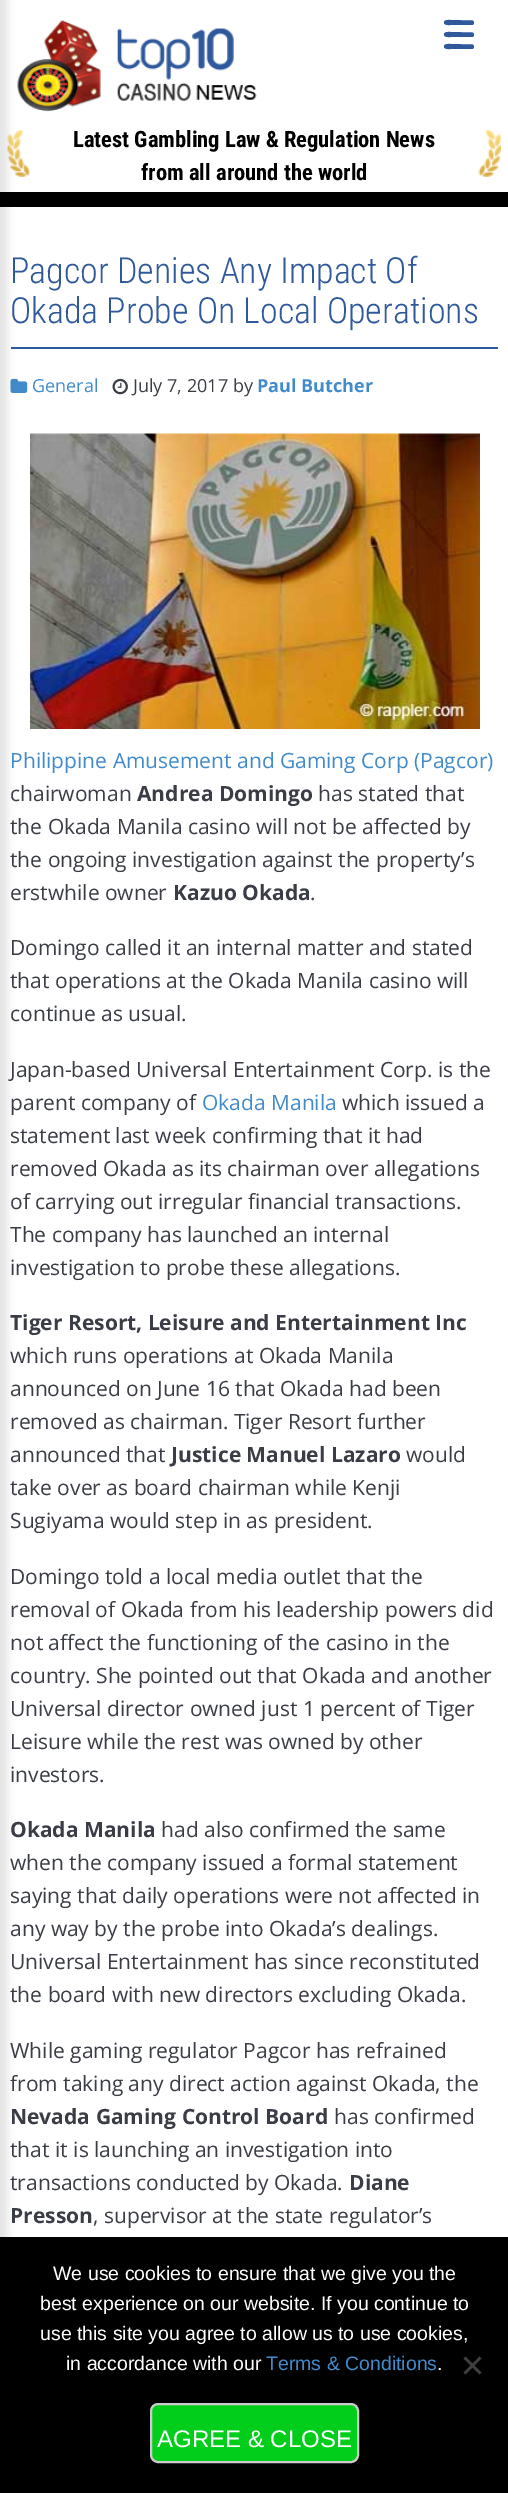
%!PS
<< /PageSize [508 2493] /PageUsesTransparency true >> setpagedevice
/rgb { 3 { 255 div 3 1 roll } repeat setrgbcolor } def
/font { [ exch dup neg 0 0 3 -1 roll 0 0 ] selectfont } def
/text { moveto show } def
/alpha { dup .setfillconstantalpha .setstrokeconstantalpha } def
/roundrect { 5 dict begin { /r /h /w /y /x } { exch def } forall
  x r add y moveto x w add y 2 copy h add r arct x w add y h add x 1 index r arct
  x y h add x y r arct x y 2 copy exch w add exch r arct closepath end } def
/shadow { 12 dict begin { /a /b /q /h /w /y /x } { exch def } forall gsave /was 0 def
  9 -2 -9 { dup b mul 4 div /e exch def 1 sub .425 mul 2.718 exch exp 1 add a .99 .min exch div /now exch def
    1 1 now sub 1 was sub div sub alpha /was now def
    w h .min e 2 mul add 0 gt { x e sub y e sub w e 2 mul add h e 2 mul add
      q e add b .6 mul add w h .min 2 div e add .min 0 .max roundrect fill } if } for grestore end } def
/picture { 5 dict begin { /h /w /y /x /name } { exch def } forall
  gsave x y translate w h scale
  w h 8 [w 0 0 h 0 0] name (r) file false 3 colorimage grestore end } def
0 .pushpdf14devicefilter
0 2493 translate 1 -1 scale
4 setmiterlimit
255 255 255 rgb
0 0 508 2493 rectfill
0 0 0 rgb
0 192 508 15 rectfill
(img_01.rgb) 17 20 240 92 picture
(img_02.rgb) 7 130 23 47 picture
47 89 155 rgb
11 347 487 2 rectfill
(img_04.rgb) 10 378 18 15 picture
0 0 0 rgb
0 2237 508 256 rectfill
-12 -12 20 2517 0 4 0.1 shadow
47 89 155 rgb
472 37 moveto -21.5 0 rlineto -1.5 0 -6.5 0.5 -6.5 -2.5 rcurveto 0 -3 5 -2.5 6.5 -2.5 rcurveto 22 0.5 rlineto 2.5 1 1.5 4.5 -0.5 4.5 rcurveto closepath 472 49 moveto -21.5 0 rlineto -1.5 0 -6.5 0.5 -6.5 -2.5 rcurveto 0 -3 5 -2.5 6.5 -2.5 rcurveto 22 0.5 rlineto 2.5 1 1.5 4.5 -0.5 4.5 rcurveto closepath 472 25 moveto -21.5 0 rlineto -1.5 0 -6.5 0.5 -6.5 -2.5 rcurveto 0 -3 5 -2.5 6.5 -2.5 rcurveto 22 0.5 rlineto 2.5 1 1.5 4.5 -0.5 4.5 rcurveto closepath fill
(img_03.rgb) 478 130 23 47 picture
(img_05.rgb) 112 378 16 17 picture
(img_06.rgb) 30 433 450 296 picture
64 64 64 rgb
479.5 2356.5 moveto 2 2 rlineto -16 16 rlineto -2 -2 rlineto closepath fill
463.5 2358.5 moveto 2 -2 rlineto 16 16 rlineto -2 2 rlineto closepath fill
0 206 27 rgb
151 2404 207 58 7 roundrect gsave fill grestore
204 204 204 rgb
2 setlinewidth
stroke
/RobotoCondensed-Bold 22.5 font
0 0 0 rgb
(Latest Gambling Law & Regulation News) 73 147 text
(from all around the world) 141 180 text
/RobotoCondensed-Light 36 font
47 89 155 rgb
(Pagcor Denies Any Impact Of) 10 283 text
(Okada Probe On Local Operations) 10 323 text
/OpenSans-Regular 18 font
66 139 202 rgb
(General) 32 392 text
58 61 70 rgb
(July 7, 2017 by) 133 392 text
/OpenSans-Bold 18 font
66 139 202 rgb
(Paul Butcher) 257 392 text
/OpenSans-Regular 21 font
(Philippine Amusement and Gaming Corp \(Pagcor\)) 10 768 text
58 61 70 rgb
(chairwoman) 10 801 text
/OpenSans-Bold 21 font
(Andrea Domingo) 137 801 text
/OpenSans-Regular 21 font
(has stated that) 318 801 text
(the Okada Manila casino will not be affected by) 10 834 text
(the ongoing investigation against the property’s) 10 867 text
(erstwhile owner) 10 900 text
/OpenSans-Bold 21 font
(Kazuo Okada) 173 900 text
/OpenSans-Regular 21 font
(.) 310 900 text
(Domingo called it an internal matter and stated) 10 955 text
(that operations at the Okada Manila casino will) 10 988 text
(continue as usual.) 10 1021 text
(Japan-based Universal Entertainment Corp. is the) 10 1077 text
(parent company of) 10 1110 text
66 139 202 rgb
(Okada Manila) 202 1110 text
58 61 70 rgb
(which issued a) 342 1110 text
(statement last week confirming that it had) 10 1143 text
(removed Okada as its chairman over allegations) 10 1176 text
(of carrying out irregular financial transactions.) 10 1209 text
(The company has launched an internal) 10 1242 text
(investigation to probe these allegations.) 10 1275 text
/OpenSans-Bold 21 font
(Tiger Resort, Leisure and Entertainment Inc) 10 1330 text
/OpenSans-Regular 21 font
(which runs operations at Okada Manila) 10 1363 text
(announced on June 16 that Okada had been) 10 1396 text
(removed as chairman. Tiger Resort further) 10 1429 text
(announced that) 10 1462 text
/OpenSans-Bold 21 font
(Justice Manuel Lazaro) 171 1462 text
/OpenSans-Regular 21 font
(would) 406 1462 text
(take over as board chairman while Kenji) 10 1495 text
(Sugiyama would step in as president.) 10 1528 text
(Domingo told a local media outlet that the) 10 1584 text
(removal of Okada from his leadership powers did) 10 1617 text
(not affect the functioning of the casino in the) 10 1650 text
(country. She pointed out that Okada and another) 10 1683 text
(Universal director owned just 1 percent of Tiger) 10 1716 text
(Leisure while the rest was owned by other) 10 1749 text
(investors.) 10 1782 text
/OpenSans-Bold 21 font
(Okada Manila) 10 1837 text
/OpenSans-Regular 21 font
(had also confirmed the same) 161 1837 text
(when the company issued a formal statement) 10 1870 text
(saying that daily operations were not affected in) 10 1903 text
(any way by the probe into Okada’s dealings.) 10 1936 text
(Universal Entertainment has since reconstituted) 10 1969 text
(the board with new directors excluding Okada.) 10 2002 text
(While gaming regulator Pagcor has refrained) 10 2058 text
(from taking any direct action against Okada, the) 10 2091 text
/OpenSans-Bold 21 font
(Nevada Gaming Control Board) 10 2124 text
/OpenSans-Regular 21 font
(has confirmed) 334 2124 text
(that it is launching an investigation into) 10 2157 text
(transactions conducted by Okada.) 10 2190 text
/OpenSans-Bold 21 font
(Diane) 349 2190 text
(Presson) 10 2223 text
/OpenSans-Regular 21 font
(, supervisor at the state regulator’s) 93 2223 text
/LiberationSans-Regular 19.5 font
255 255 255 rgb
(We use cookies to ensure that we give you the) 53 2280 text
(best experience on our website. If you continue to) 40 2310 text
(use this site you agree to allow us to use cookies,) 40 2340 text
(in accordance with our) 66 2370 text
66 139 202 rgb
(Terms & Conditions) 266 2370 text
255 255 255 rgb
(.) 437 2370 text
/LiberationSans-Regular 24 font
(AGREE & CLOSE) 157 2447 text
.poppdf14devicefilter showpage
